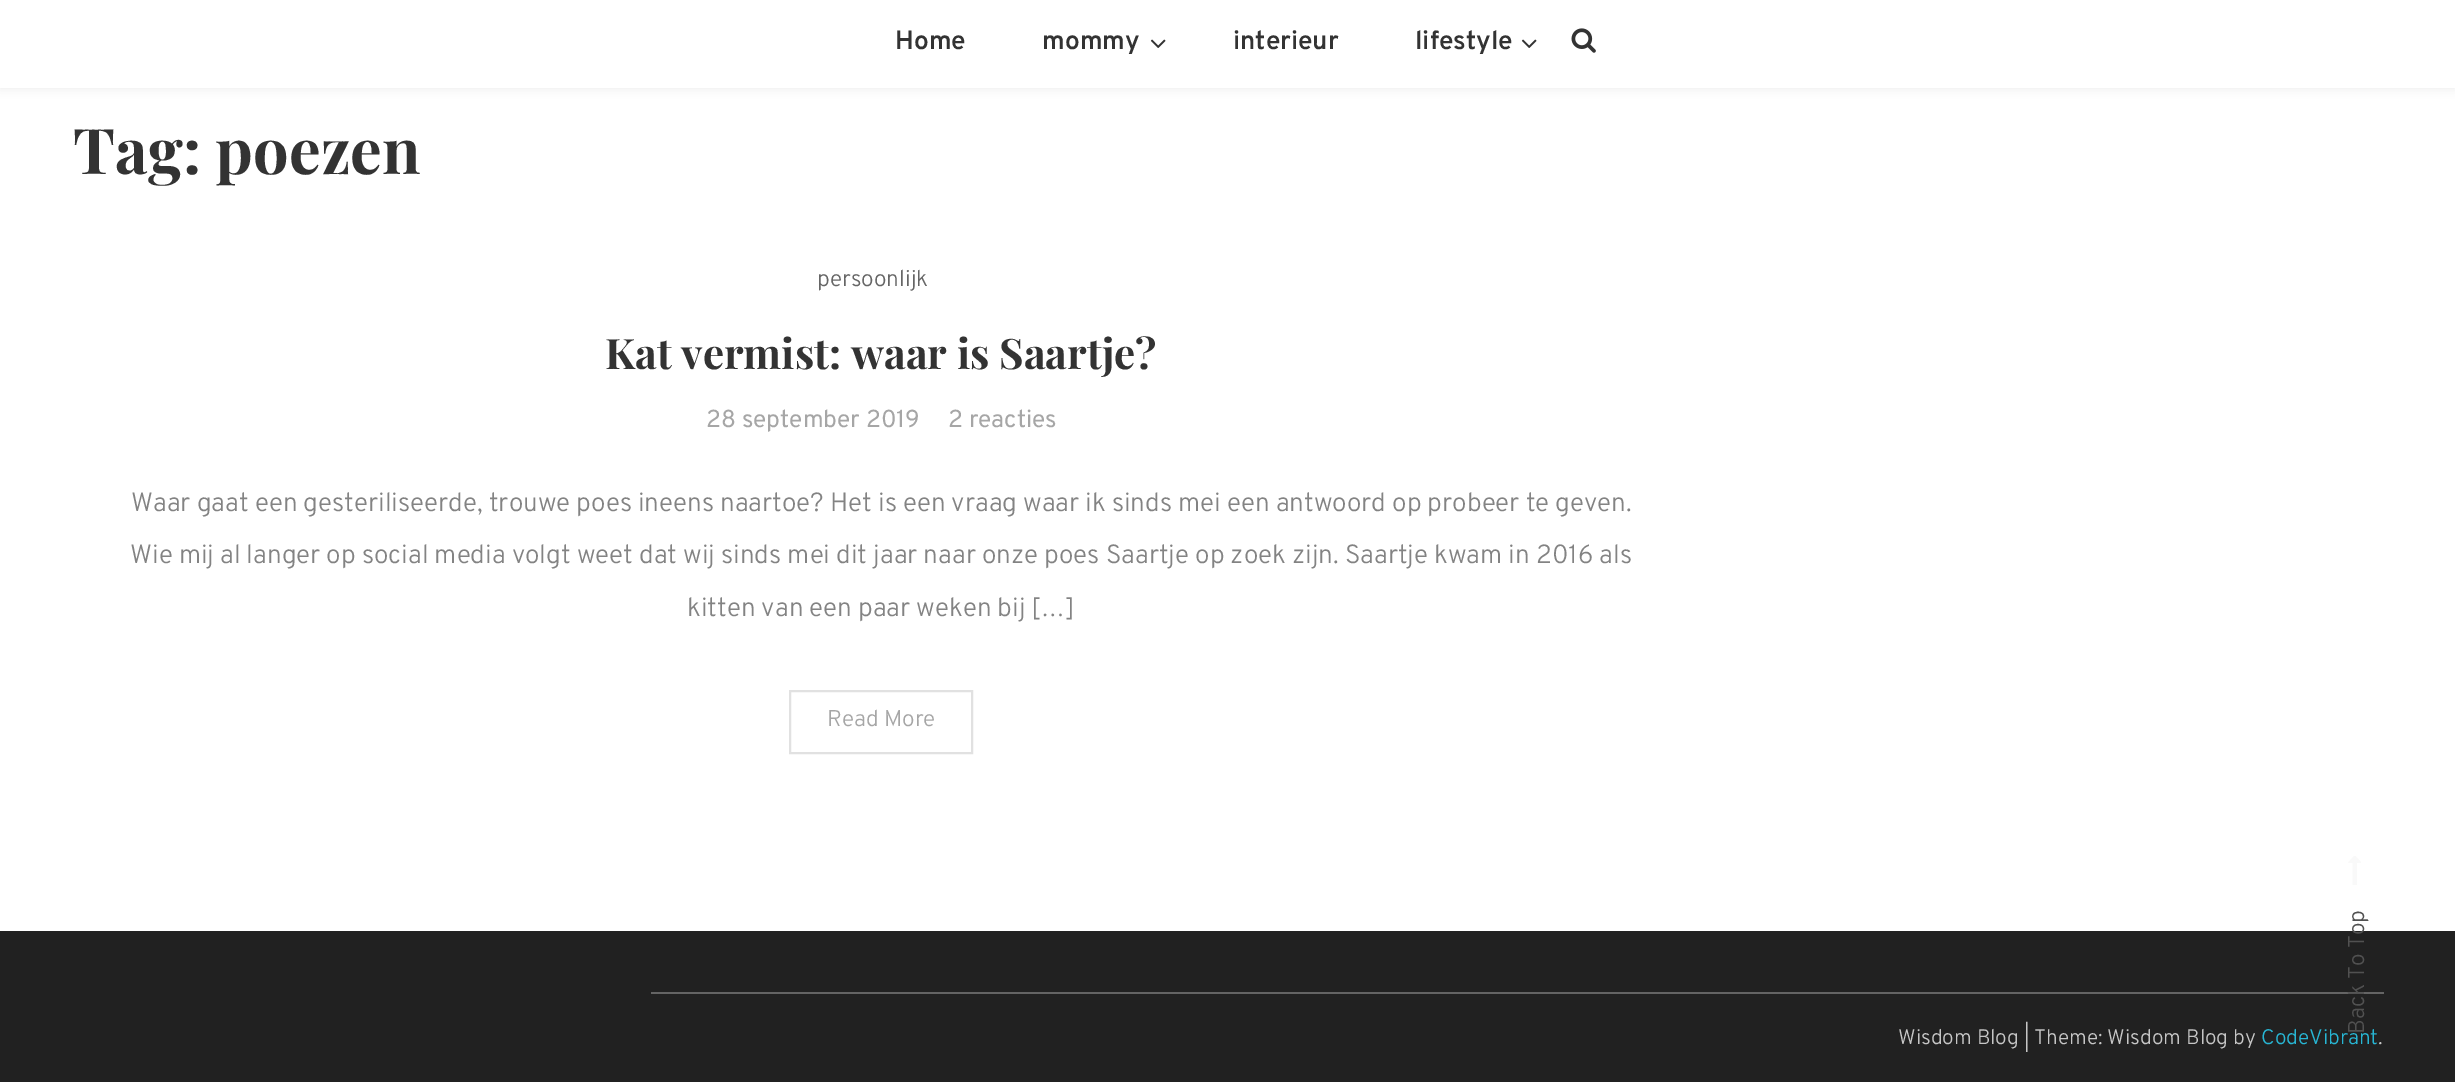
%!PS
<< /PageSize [2455 1082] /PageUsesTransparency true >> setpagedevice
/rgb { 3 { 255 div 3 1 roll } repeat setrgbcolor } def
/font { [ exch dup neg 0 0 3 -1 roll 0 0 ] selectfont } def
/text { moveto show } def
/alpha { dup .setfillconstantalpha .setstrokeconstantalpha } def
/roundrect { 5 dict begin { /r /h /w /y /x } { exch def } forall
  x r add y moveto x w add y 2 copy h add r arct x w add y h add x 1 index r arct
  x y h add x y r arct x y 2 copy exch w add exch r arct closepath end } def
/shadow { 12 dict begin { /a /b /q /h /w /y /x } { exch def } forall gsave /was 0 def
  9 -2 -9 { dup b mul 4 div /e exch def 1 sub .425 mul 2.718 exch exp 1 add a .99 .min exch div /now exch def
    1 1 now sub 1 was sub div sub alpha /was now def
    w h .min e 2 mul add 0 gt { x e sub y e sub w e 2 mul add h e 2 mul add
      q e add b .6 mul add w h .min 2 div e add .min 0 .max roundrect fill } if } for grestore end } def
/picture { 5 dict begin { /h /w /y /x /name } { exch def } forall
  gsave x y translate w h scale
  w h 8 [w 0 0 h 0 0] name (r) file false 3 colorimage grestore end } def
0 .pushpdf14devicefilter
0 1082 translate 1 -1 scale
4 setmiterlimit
255 255 255 rgb
0 0 2455 1082 rectfill
0 0 0 rgb
0 0 2455 88 0 5 0.08 shadow
255 255 255 rgb
0 0 2455 88 rectfill
(img_01.rgb) 1150 39 16 9 picture
(img_01.rgb) 1521 39 16 9 picture
(img_02.rgb) 1571 28 25 25 picture
225 225 225 rgb
2 setlinewidth
790 691 182 62 rectstroke
(img_03.rgb) 2348 856 13 29 picture
33 33 33 rgb
0 931 2455 151 rectfill
100 100 100 rgb
651 992 1733 2 rectfill
/Overpass-SemiBold 26.25 font
51 51 51 rgb
(Home) 895 49 text
(mommy) 1042 49 text
(interieur) 1233 49 text
(lifestyle) 1415 49 text
/PlayfairDisplay-Bold 63 font
(Tag: poezen) 73 174 text
/Overpass-Light 22.75 font
102 102 102 rgb
(persoonlijk) 817 286 text
/PlayfairDisplay-Bold 42 font
51 51 51 rgb
(Kat vermist: waar is Saartje?) 605 369 text
/Overpass-Regular 24.5 font
166 166 166 rgb
(28 september 2019) 706 427 text
(2 reacties) 948 427 text
/Overpass-Light 26.25 font
131 131 131 rgb
(Waar gaat een gesteriliseerde, trouwe poes ineens naartoe? Het is een vraag waar ik sinds mei een antwoord op probeer te geven.) 131 511 text
(Wie mij al langer op social media volgt weet dat wij sinds mei dit jaar naar onze poes Saartje op zoek zijn. Saartje kwam in 2016 als) 130 563 text
(kitten van een paar weken bij […]) 687 616 text
/Overpass-Light 22.75 font
166 166 166 rgb
(Read More) 827 726 text
81 81 81 rgb
gsave 2364 1034 translate -90 rotate 0 0 moveto (Back To Top) show grestore
/Overpass-Light 21 font
198 198 198 rgb
(Wisdom Blog | Theme: Wisdom Blog by) 1898 1044 text
39 182 212 rgb
(CodeVibrant) 2261 1044 text
198 198 198 rgb
(.) 2378 1044 text
.poppdf14devicefilter showpage
